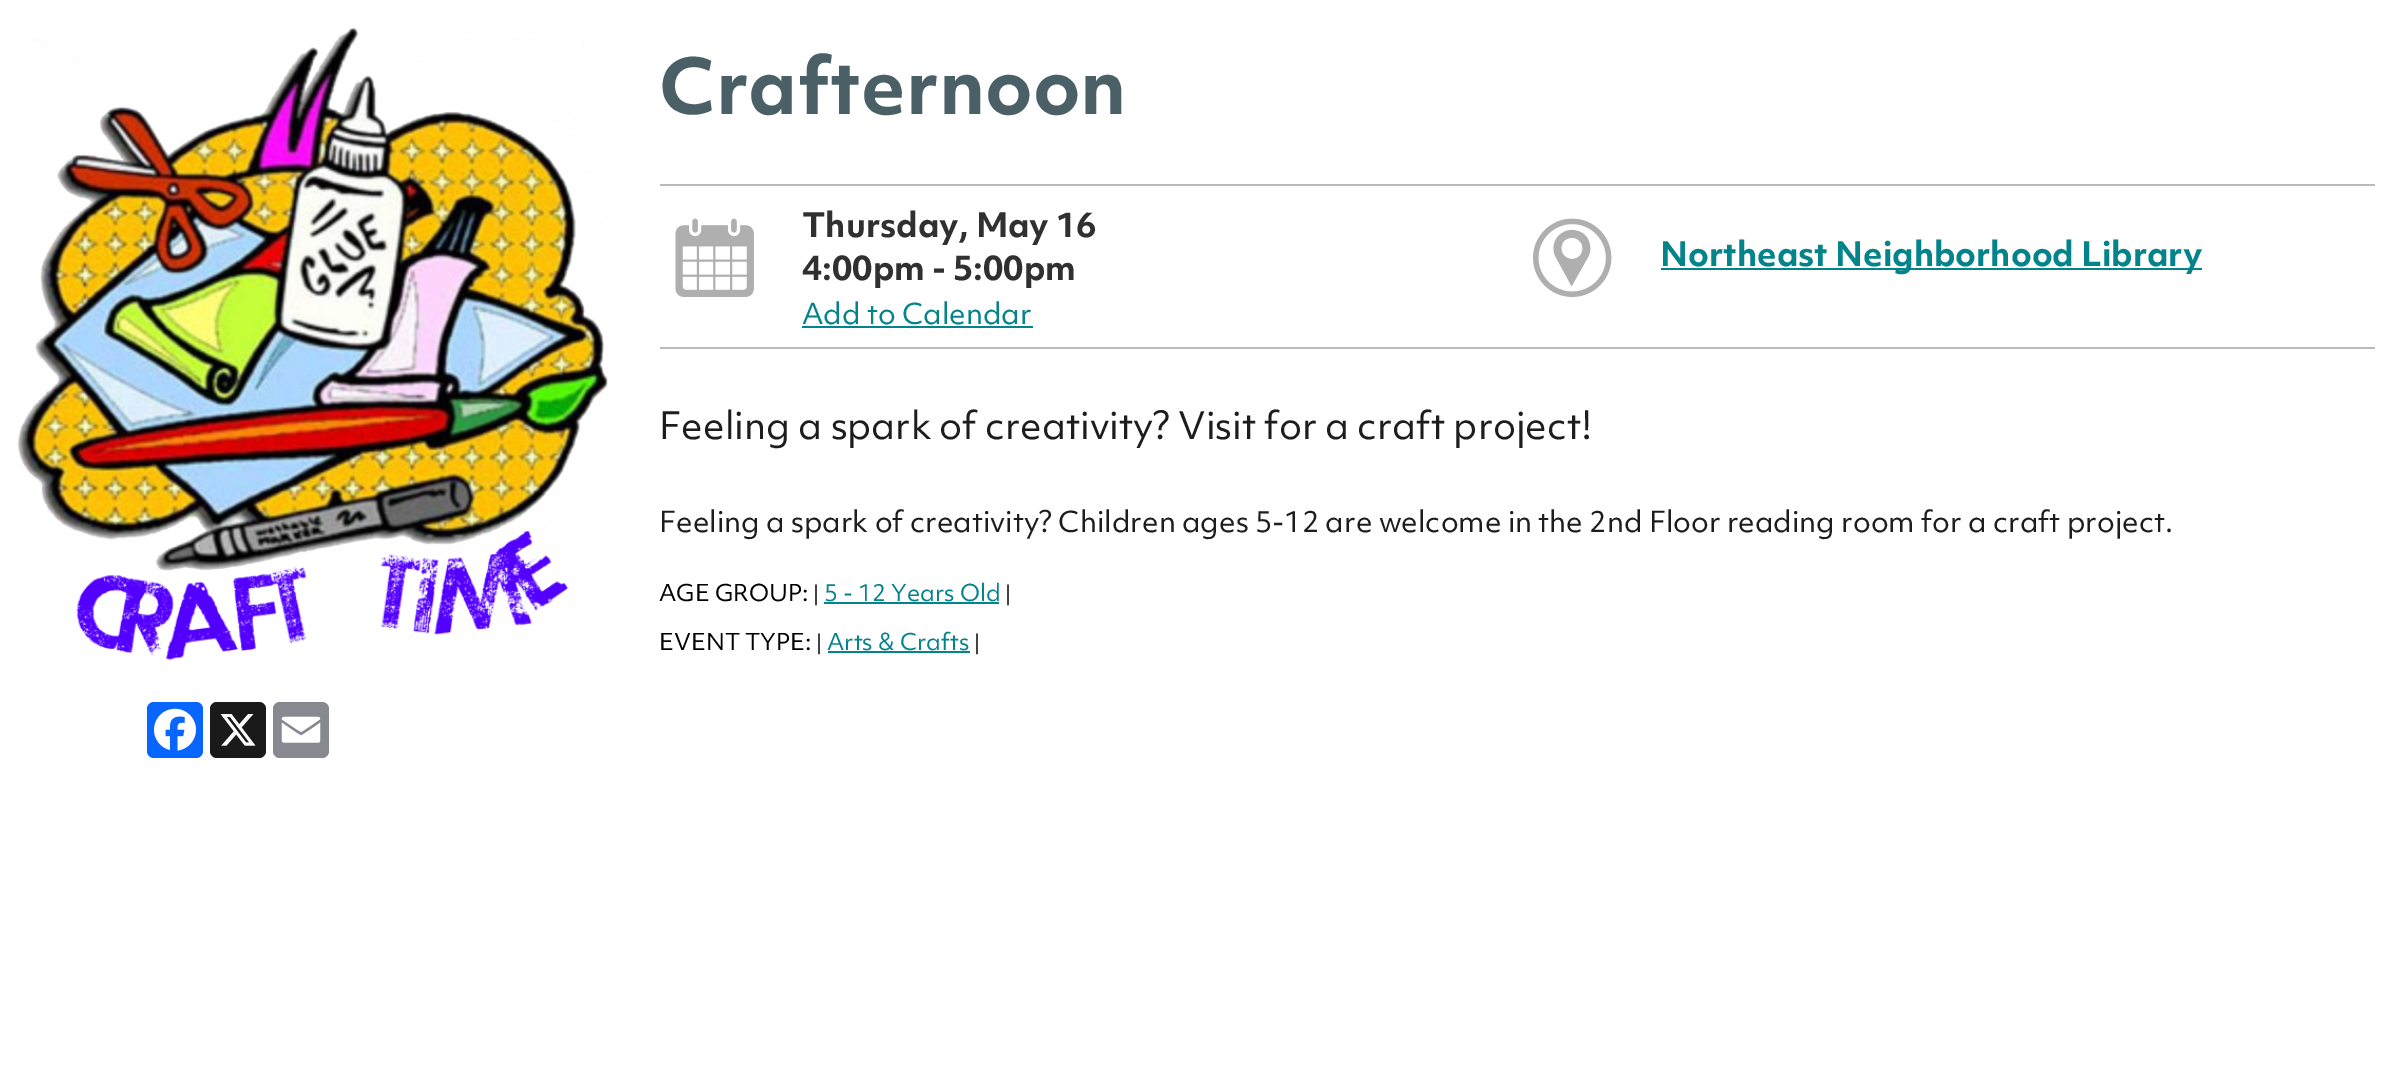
%!PS
<< /PageSize [2392 1069] >> setpagedevice
/rgb { 3 { 255 div 3 1 roll } repeat setrgbcolor } def
/font { [ exch dup neg 0 0 3 -1 roll 0 0 ] selectfont } def
/text { moveto show } def
/roundrect { 5 dict begin { /r /h /w /y /x } { exch def } forall
  x r add y moveto x w add y 2 copy h add r arct x w add y h add x 1 index r arct
  x y h add x y r arct x y 2 copy exch w add exch r arct closepath end } def
/picture { 5 dict begin { /h /w /y /x /name } { exch def } forall
  gsave x y translate w h scale
  w h 8 [w 0 0 h 0 0] name (r) file false 3 colorimage grestore end } def
0 1069 translate 1 -1 scale
4 setmiterlimit
255 255 255 rgb
0 0 2392 1069 rectfill
(img_01.rgb) 17 27 591 633 picture
8 102 255 rgb
147 702 56 56 7 roundrect fill
(img_02.rgb) 154 708 42 43 picture
26 26 26 rgb
210 702 56 56 7 roundrect fill
(img_03.rgb) 220 714 36 32 picture
136 137 144 rgb
273 702 56 56 7 roundrect fill
(img_04.rgb) 281 716 40 27 picture
187 187 187 rgb
660 184 1715 2 rectfill
(img_05.rgb) 675 218 79 79 picture
3 131 138 rgb
802 326 231 2 rectfill
(img_06.rgb) 1533 218 79 79 picture
1661 268 541 2 rectfill
187 187 187 rgb
660 347 1715 2 rectfill
3 131 138 rgb
824 602 175 2 rectfill
828 651 142 2 rectfill
/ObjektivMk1-Bold 74.75 font
74 96 102 rgb
(Crafternoon) 659 114 text
/ObjektivMk1-Bold 32.7 font
48 48 48 rgb
(Thursday, May 16) 802 237 text
(4:00pm - 5:00pm) 802 280 text
/ObjektivMk1-Regular 28 font
3 131 138 rgb
(Add to Calendar) 802 324 text
/ObjektivMk1-Bold 32.7 font
(Northeast Neighborhood Library) 1660 266 text
/ObjektivMk1-Regular 36.4 font
29 29 29 rgb
(Feeling a spark of creativity? Visit for a craft project!) 659 439 text
/ObjektivMk1-Regular 28 font
(Feeling a spark of creativity? Children ages 5-12 are welcome in the 2nd Floor reading room for a craft project.) 659 532 text
/ObjektivMk1-Regular 22.5 font
0 0 0 rgb
(AGE GROUP:) 659 601 text
/ObjektivMk1-Regular 19 font
(|) 813 601 text
/ObjektivMk1-Regular 22.5 font
3 131 138 rgb
(5 - 12 Years Old) 824 601 text
/ObjektivMk1-Regular 19 font
0 0 0 rgb
(|) 1005 601 text
/ObjektivMk1-Regular 22.5 font
(EVENT TYPE:) 659 650 text
/ObjektivMk1-Regular 19 font
(|) 816 650 text
/ObjektivMk1-Regular 22.5 font
3 131 138 rgb
(Arts & Crafts) 827 650 text
/ObjektivMk1-Regular 19 font
0 0 0 rgb
(|) 974 650 text
showpage
